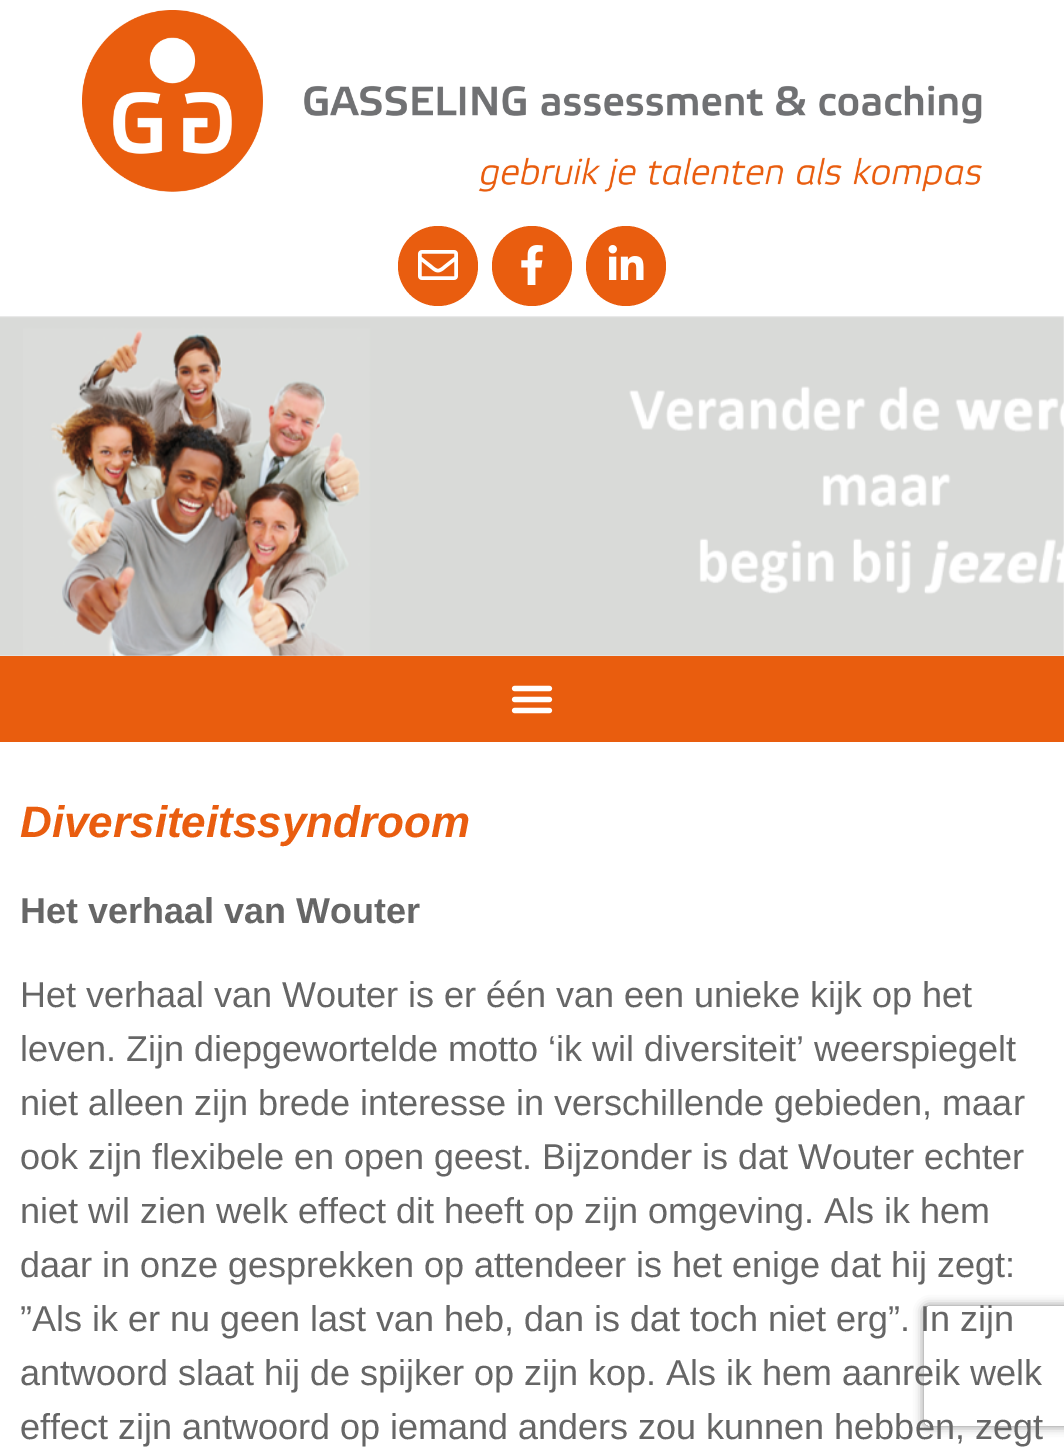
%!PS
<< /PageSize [1064 1454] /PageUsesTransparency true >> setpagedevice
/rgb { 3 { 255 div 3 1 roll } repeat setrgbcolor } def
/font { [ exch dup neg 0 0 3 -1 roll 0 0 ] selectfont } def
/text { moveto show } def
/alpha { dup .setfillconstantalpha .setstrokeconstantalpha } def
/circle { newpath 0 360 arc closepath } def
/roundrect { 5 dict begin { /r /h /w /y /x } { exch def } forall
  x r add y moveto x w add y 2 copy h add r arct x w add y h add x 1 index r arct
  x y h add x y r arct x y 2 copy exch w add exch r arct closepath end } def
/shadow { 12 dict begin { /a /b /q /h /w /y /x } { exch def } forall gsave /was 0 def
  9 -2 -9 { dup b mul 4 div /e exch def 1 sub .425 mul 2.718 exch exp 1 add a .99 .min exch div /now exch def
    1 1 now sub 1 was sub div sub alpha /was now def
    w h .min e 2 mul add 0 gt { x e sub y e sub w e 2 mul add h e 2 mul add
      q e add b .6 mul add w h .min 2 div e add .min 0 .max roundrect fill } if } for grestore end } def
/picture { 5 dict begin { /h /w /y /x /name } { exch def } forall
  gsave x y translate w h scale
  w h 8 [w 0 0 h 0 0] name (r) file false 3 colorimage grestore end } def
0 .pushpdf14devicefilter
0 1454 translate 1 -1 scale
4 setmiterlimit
255 255 255 rgb
0 0 1064 1454 rectfill
(img_01.rgb) 82 10 900 182 picture
233 93 15 rgb
438 266 40 circle fill
(img_02.rgb) 418 250 40 30 picture
532 266 40 circle fill
(img_03.rgb) 521 245 22 40 picture
626 266 40 circle fill
(img_04.rgb) 608 245 36 35 picture
(img_05.rgb) 0 316 1064 340 picture
233 93 14 rgb
0 656 1064 86 rectfill
(img_06.rgb) 511 685 42 29 picture
gsave
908 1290 moveto 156 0 rlineto 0 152 rlineto -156 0 rlineto closepath 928 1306 moveto 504 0 rlineto 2 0 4 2 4 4 rcurveto 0 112 rlineto 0 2 -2 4 -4 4 rcurveto -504 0 rlineto -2 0 -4 -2 -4 -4 rcurveto 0 -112 rlineto 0 -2 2 -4 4 -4 rcurveto closepath eoclip newpath
128 128 128 rgb
924 1306 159 120 4 5 1 shadow
grestore
/LiberationSans-BoldItalic 44 font
233 93 15 rgb
(Diversiteitssyndroom) 20 837 text
/LiberationSans-Bold 36 font
102 102 102 rgb
(Het verhaal van Wouter) 20 923 text
/LiberationSans-Regular 36 font
(Het verhaal van Wouter is er één van een unieke kijk op het) 20 1007 text
(leven. Zijn diepgewortelde motto ‘ik wil diversiteit’ weerspiegelt) 20 1061 text
(niet alleen zijn brede interesse in verschillende gebieden, maar) 20 1115 text
(ook zijn flexibele en open geest. Bijzonder is dat Wouter echter) 20 1169 text
(niet wil zien welk effect dit heeft op zijn omgeving. Als ik hem) 20 1223 text
(daar in onze gesprekken op attendeer is het enige dat hij zegt:) 20 1277 text
(”Als ik er nu geen last van heb, dan is dat toch niet erg”. In zijn) 20 1331 text
(antwoord slaat hij de spijker op zijn kop. Als ik hem aanreik welk) 20 1385 text
(effect zijn antwoord op iemand anders zou kunnen hebben, zegt) 20 1439 text
.poppdf14devicefilter showpage
